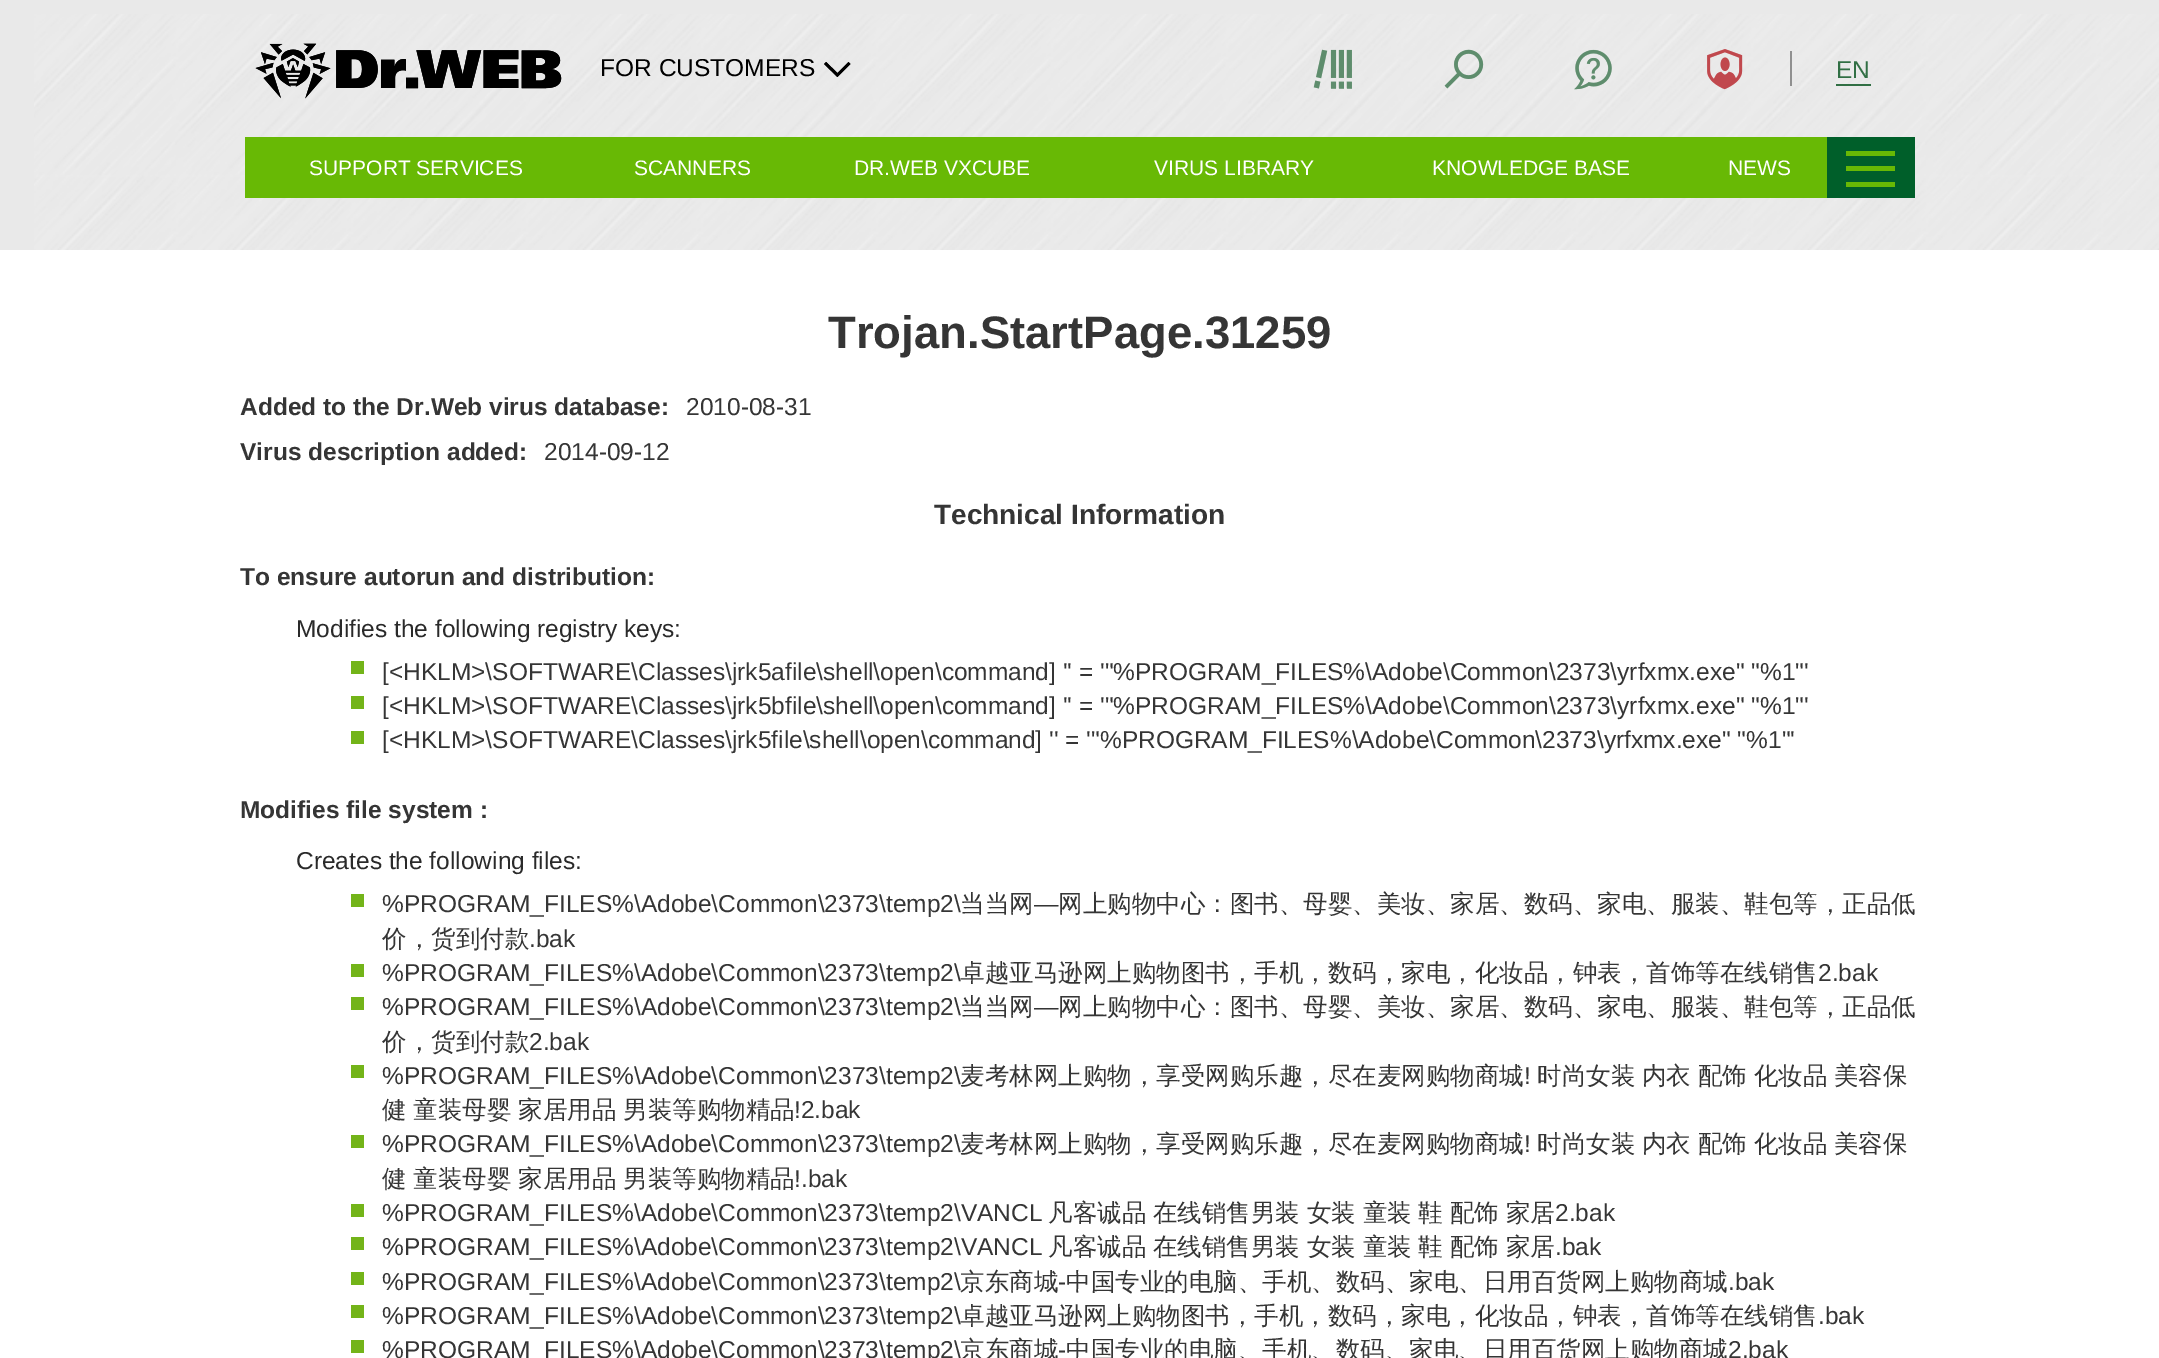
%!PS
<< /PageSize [2159 1358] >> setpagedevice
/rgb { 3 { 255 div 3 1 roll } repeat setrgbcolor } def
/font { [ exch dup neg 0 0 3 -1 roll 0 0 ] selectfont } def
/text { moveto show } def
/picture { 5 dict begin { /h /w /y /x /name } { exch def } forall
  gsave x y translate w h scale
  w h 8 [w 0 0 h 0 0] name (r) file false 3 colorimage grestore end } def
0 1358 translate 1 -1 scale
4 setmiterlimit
233 233 233 rgb
0 0 2159 1358 rectfill
(img_01.rgb) 34 14 2125 236 picture
(img_02.rgb) 255 43 307 56 picture
0 0 0 rgb
824 64 moveto 2 -2 rlineto 11.5 11 rlineto 11 -11 rlineto 2 2 rlineto -13 13 rlineto closepath fill
(img_03.rgb) 1313 49 39 40 picture
(img_04.rgb) 1444 49 40 40 picture
(img_05.rgb) 1574 49 38 41 picture
(img_06.rgb) 1707 49 36 41 picture
144 144 144 rgb
1790 51 2 35 rectfill
49 111 68 rgb
1836 84 35 2 rectfill
104 185 5 rgb
245 137 1582 61 rectfill
0 95 42 rgb
1827 137 88 61 rectfill
104 185 5 rgb
1846 151 49 5 rectfill
1846 166 49 5 rectfill
1846 182 49 5 rectfill
255 255 255 rgb
0 250 2159 1108 rectfill
115 180 25 rgb
351 661 13 13 rectfill
351 696 13 13 rectfill
351 731 13 13 rectfill
351 894 13 13 rectfill
351 964 13 13 rectfill
351 997 13 13 rectfill
351 1065 13 13 rectfill
351 1135 13 13 rectfill
351 1204 13 13 rectfill
351 1237 13 13 rectfill
351 1272 13 13 rectfill
351 1305 13 13 rectfill
351 1340 13 13 rectfill
/LiberationSans-Regular 24.5 font
0 0 0 rgb
(FOR CUSTOMERS) 600 76 text
49 111 68 rgb
(EN) 1836 78 text
/LiberationSans-Regular 21 font
255 255 255 rgb
(SUPPORT SERVICES) 309 175 text
(SCANNERS) 634 175 text
(DR.WEB VXCUBE) 854 175 text
(VIRUS LIBRARY) 1154 175 text
(KNOWLEDGE BASE) 1432 175 text
(NEWS) 1728 175 text
/LiberationSans-Bold 45.5 font
53 53 53 rgb
(Trojan.StartPage.31259) 828 348 text
/LiberationSans-Bold 24.5 font
(Added to the Dr.Web virus database:) 240 415 text
/LiberationSans-Regular 24.5 font
(2010-08-31) 686 415 text
/LiberationSans-Bold 24.5 font
(Virus description added:) 240 460 text
/LiberationSans-Regular 24.5 font
(2014-09-12) 544 460 text
/LiberationSans-Bold 28 font
(Technical Information) 934 524 text
/LiberationSans-Bold 24.5 font
(To ensure autorun and distribution:) 240 585 text
/LiberationSans-Regular 24.5 font
42 42 42 rgb
(Modifies the following registry keys:) 296 637 text
53 53 53 rgb
([<HKLM>\\SOFTWARE\\Classes\\jrk5afile\\shell\\open\\command] '' = '"%PROGRAM_FILES%\\Adobe\\Common\\2373\\yrfxmx.exe" "%1"') 382 680 text
([<HKLM>\\SOFTWARE\\Classes\\jrk5bfile\\shell\\open\\command] '' = '"%PROGRAM_FILES%\\Adobe\\Common\\2373\\yrfxmx.exe" "%1"') 382 714 text
([<HKLM>\\SOFTWARE\\Classes\\jrk5file\\shell\\open\\command] '' = '"%PROGRAM_FILES%\\Adobe\\Common\\2373\\yrfxmx.exe" "%1"') 382 748 text
/LiberationSans-Bold 24.5 font
(Modifies file system :) 240 818 text
/LiberationSans-Regular 24.5 font
42 42 42 rgb
(Creates the following files:) 296 869 text
53 53 53 rgb
(%PROGRAM_FILES%\\Adobe\\Common\\2373\\temp2\\) 382 912 text
/WenQuanYiZenHei-Medium 24.5 font
(当当网) 960 912 text
/LiberationSans-Regular 24.5 font
(—) 1034 912 text
/WenQuanYiZenHei-Medium 24.5 font
(网上购物中心：图书、母婴、美妆、家居、数码、家电、服装、鞋包等，正品低) 1058 912 text
(价，货到付款) 382 947 text
/LiberationSans-Regular 24.5 font
(.bak) 529 947 text
(%PROGRAM_FILES%\\Adobe\\Common\\2373\\temp2\\) 382 981 text
/WenQuanYiZenHei-Medium 24.5 font
(卓越亚马逊网上购物图书，手机，数码，家电，化妆品，钟表，首饰等在线销售) 960 981 text
/LiberationSans-Regular 24.5 font
(2.bak) 1818 981 text
(%PROGRAM_FILES%\\Adobe\\Common\\2373\\temp2\\) 382 1015 text
/WenQuanYiZenHei-Medium 24.5 font
(当当网) 960 1015 text
/LiberationSans-Regular 24.5 font
(—) 1034 1015 text
/WenQuanYiZenHei-Medium 24.5 font
(网上购物中心：图书、母婴、美妆、家居、数码、家电、服装、鞋包等，正品低) 1058 1015 text
(价，货到付款) 382 1050 text
/LiberationSans-Regular 24.5 font
(2.bak) 529 1050 text
(%PROGRAM_FILES%\\Adobe\\Common\\2373\\temp2\\) 382 1084 text
/WenQuanYiZenHei-Medium 24.5 font
(麦考林网上购物，享受网购乐趣，尽在麦网购物商城) 960 1084 text
/LiberationSans-Regular 24.5 font
(!) 1524 1084 text
/WenQuanYiZenHei-Medium 24.5 font
1537 1084 moveto -0.5 0 32 (时尚女装 内衣 配饰 化妆品 美容保) widthshow
382 1118 moveto -0.5 0 32 (健 童装母婴 家居用品 男装等购物精品) widthshow
/LiberationSans-Regular 24.5 font
(!2.bak) 794 1118 text
(%PROGRAM_FILES%\\Adobe\\Common\\2373\\temp2\\) 382 1152 text
/WenQuanYiZenHei-Medium 24.5 font
(麦考林网上购物，享受网购乐趣，尽在麦网购物商城) 960 1152 text
/LiberationSans-Regular 24.5 font
(!) 1524 1152 text
/WenQuanYiZenHei-Medium 24.5 font
1537 1152 moveto -0.5 0 32 (时尚女装 内衣 配饰 化妆品 美容保) widthshow
382 1187 moveto -0.5 0 32 (健 童装母婴 家居用品 男装等购物精品) widthshow
/LiberationSans-Regular 24.5 font
(!.bak) 794 1187 text
(%PROGRAM_FILES%\\Adobe\\Common\\2373\\temp2\\VANCL) 382 1221 text
/WenQuanYiZenHei-Medium 24.5 font
1048 1221 moveto -0.5 0 32 (凡客诚品 在线销售男装 女装 童装 鞋 配饰 家居) widthshow
/LiberationSans-Regular 24.5 font
(2.bak) 1555 1221 text
(%PROGRAM_FILES%\\Adobe\\Common\\2373\\temp2\\VANCL) 382 1255 text
/WenQuanYiZenHei-Medium 24.5 font
1048 1255 moveto -0.5 0 32 (凡客诚品 在线销售男装 女装 童装 鞋 配饰 家居) widthshow
/LiberationSans-Regular 24.5 font
(.bak) 1555 1255 text
(%PROGRAM_FILES%\\Adobe\\Common\\2373\\temp2\\) 382 1290 text
/WenQuanYiZenHei-Medium 24.5 font
(京东商城) 960 1290 text
/LiberationSans-Regular 24.5 font
(-) 1058 1290 text
/WenQuanYiZenHei-Medium 24.5 font
(中国专业的电脑、手机、数码、家电、日用百货网上购物商城) 1066 1290 text
/LiberationSans-Regular 24.5 font
(.bak) 1728 1290 text
(%PROGRAM_FILES%\\Adobe\\Common\\2373\\temp2\\) 382 1324 text
/WenQuanYiZenHei-Medium 24.5 font
(卓越亚马逊网上购物图书，手机，数码，家电，化妆品，钟表，首饰等在线销售) 960 1324 text
/LiberationSans-Regular 24.5 font
(.bak) 1818 1324 text
(%PROGRAM_FILES%\\Adobe\\Common\\2373\\temp2\\) 382 1358 text
/WenQuanYiZenHei-Medium 24.5 font
(京东商城) 960 1358 text
/LiberationSans-Regular 24.5 font
(-) 1058 1358 text
/WenQuanYiZenHei-Medium 24.5 font
(中国专业的电脑、手机、数码、家电、日用百货网上购物商城) 1066 1358 text
/LiberationSans-Regular 24.5 font
(2.bak) 1728 1358 text
showpage
